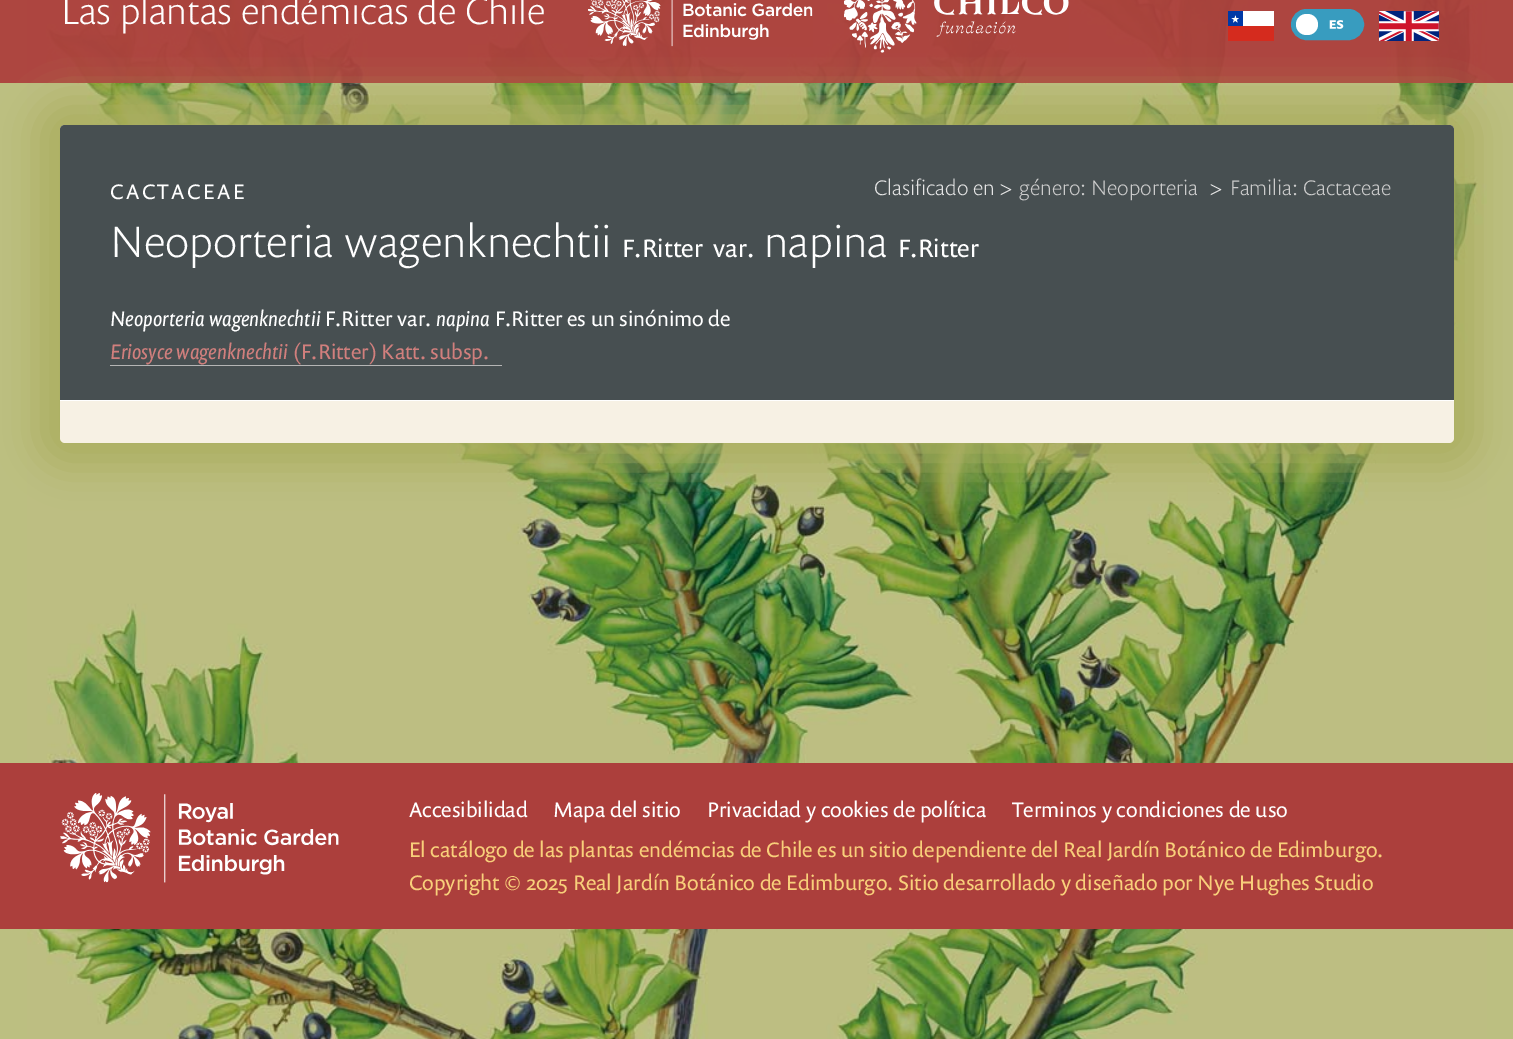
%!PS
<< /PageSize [1513 1039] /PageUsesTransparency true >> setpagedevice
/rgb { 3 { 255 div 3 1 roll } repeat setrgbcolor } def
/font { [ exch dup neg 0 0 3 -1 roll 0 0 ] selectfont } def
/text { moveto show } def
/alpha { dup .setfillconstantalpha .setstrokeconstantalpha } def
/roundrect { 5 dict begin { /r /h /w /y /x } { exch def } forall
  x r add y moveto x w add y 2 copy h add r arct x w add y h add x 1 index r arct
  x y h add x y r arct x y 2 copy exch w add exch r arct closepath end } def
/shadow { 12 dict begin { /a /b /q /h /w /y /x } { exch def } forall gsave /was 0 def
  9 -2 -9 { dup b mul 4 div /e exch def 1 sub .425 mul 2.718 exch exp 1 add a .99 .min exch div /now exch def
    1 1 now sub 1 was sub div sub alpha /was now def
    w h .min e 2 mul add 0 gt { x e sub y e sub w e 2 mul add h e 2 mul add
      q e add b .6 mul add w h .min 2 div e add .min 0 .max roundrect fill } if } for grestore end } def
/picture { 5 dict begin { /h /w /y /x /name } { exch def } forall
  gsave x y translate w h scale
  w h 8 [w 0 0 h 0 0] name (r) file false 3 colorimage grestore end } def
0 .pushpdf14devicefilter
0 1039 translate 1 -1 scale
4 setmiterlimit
188 191 129 rgb
0 0 1513 1039 rectfill
(img_01.rgb) 27 0 1460 1039 picture
0.95 alpha
172 63 60 rgb
0 0 1513 83 rectfill
1 alpha
(img_02.rgb) 588 0 225 47 picture
(img_03.rgb) 844 0 225 53 picture
0 57 166 rgb
1228 11 15 15 rectfill
255 255 255 rgb
1243 11 31 15 rectfill
1233 22.5 moveto 2.5 -7 rlineto 2 7 rlineto -6 -4.5 rlineto 7.5 0 rlineto fill
213 43 30 rgb
1228 26 46 15 rectfill
56 156 191 rgb
1292.5 10.5 70 28 14 roundrect gsave fill grestore
3 setlinewidth
stroke
255 255 255 rgb
1296 14 22 21 10.5 roundrect fill
(img_04.rgb) 1329 20 15 9 picture
(img_05.rgb) 1379 11 60 30 picture
170 174 95 rgb
35 100 1444 368 30 19 0.9 shadow
247 241 228 rgb
60 125 1394 318 5 roundrect fill
71 79 81 rgb
65 125 moveto 1384 0 rlineto 3 0 5 2 5 5 rcurveto 0 270 rlineto -1394 0 rlineto 0 -270 rlineto 0 -3 2 -5 5 -5 rcurveto closepath fill
181 181 181 rgb
110 365 392 1 rectfill
255 255 255 rgb
60 400 1394 1 rectfill
172 63 60 rgb
0 763 1513 166 rectfill
(img_06.rgb) 60 793 279 90 picture
/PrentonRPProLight-Light 38.25 font
255 255 255 rgb
(Las plantas endémicas de Chile) 61 24 text
/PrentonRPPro-Regular 21.25 font
110 199 moveto 2.5 0 (CACTACEAE) ashow
/PrentonRPProLight-Light 21.25 font
229 229 229 rgb
(Clasificado en >) 874 195 text
204 204 204 rgb
(género: Neoporteria) 1019 195 text
229 229 229 rgb
(>) 1209 195 text
204 204 204 rgb
(Familia: Cactaceae) 1230 195 text
/PrentonRPProLight-Light 44.6 font
255 255 255 rgb
(Neoporteria wagenknechtii) 110 257 text
/PrentonRPPro-Regular 25.5 font
(F.Ritter) 622 257 text
(var.) 713 257 text
/PrentonRPProLight-Light 44.6 font
(napina) 764 257 text
/PrentonRPPro-Regular 25.5 font
(F.Ritter) 898 257 text
/PrentonRPPro-Italic 21.25 font
(Neoporteria wagenknechtii) 110 326 text
/PrentonRPPro-Regular 21.25 font
(F.Ritter var.) 325 326 text
/PrentonRPPro-Italic 21.25 font
(napina) 436 326 text
/PrentonRPPro-Regular 21.25 font
(F.Ritter es un sinónimo de) 495 326 text
/PrentonRPPro-Italic 21.25 font
209 127 125 rgb
(Eriosyce wagenknechtii) 110 359 text
/PrentonRPPro-Regular 21.25 font
(\(F.Ritter\) Katt. subsp.) 293 359 text
255 255 255 rgb
(Accesibilidad) 409 817 text
(Mapa del sitio) 553 817 text
(Privacidad y cookies de política) 707 817 text
(Terminos y condiciones de uso) 1012 817 text
248 207 122 rgb
(El catálogo de las plantas endémcias de Chile es un sitio dependiente del Real Jardín Botánico de Edimburgo.) 409 857 text
(Copyright © 2025 Real Jardín Botánico de Edimburgo. Sitio desarrollado y diseñado por Nye Hughes Studio) 409 890 text
.poppdf14devicefilter showpage
